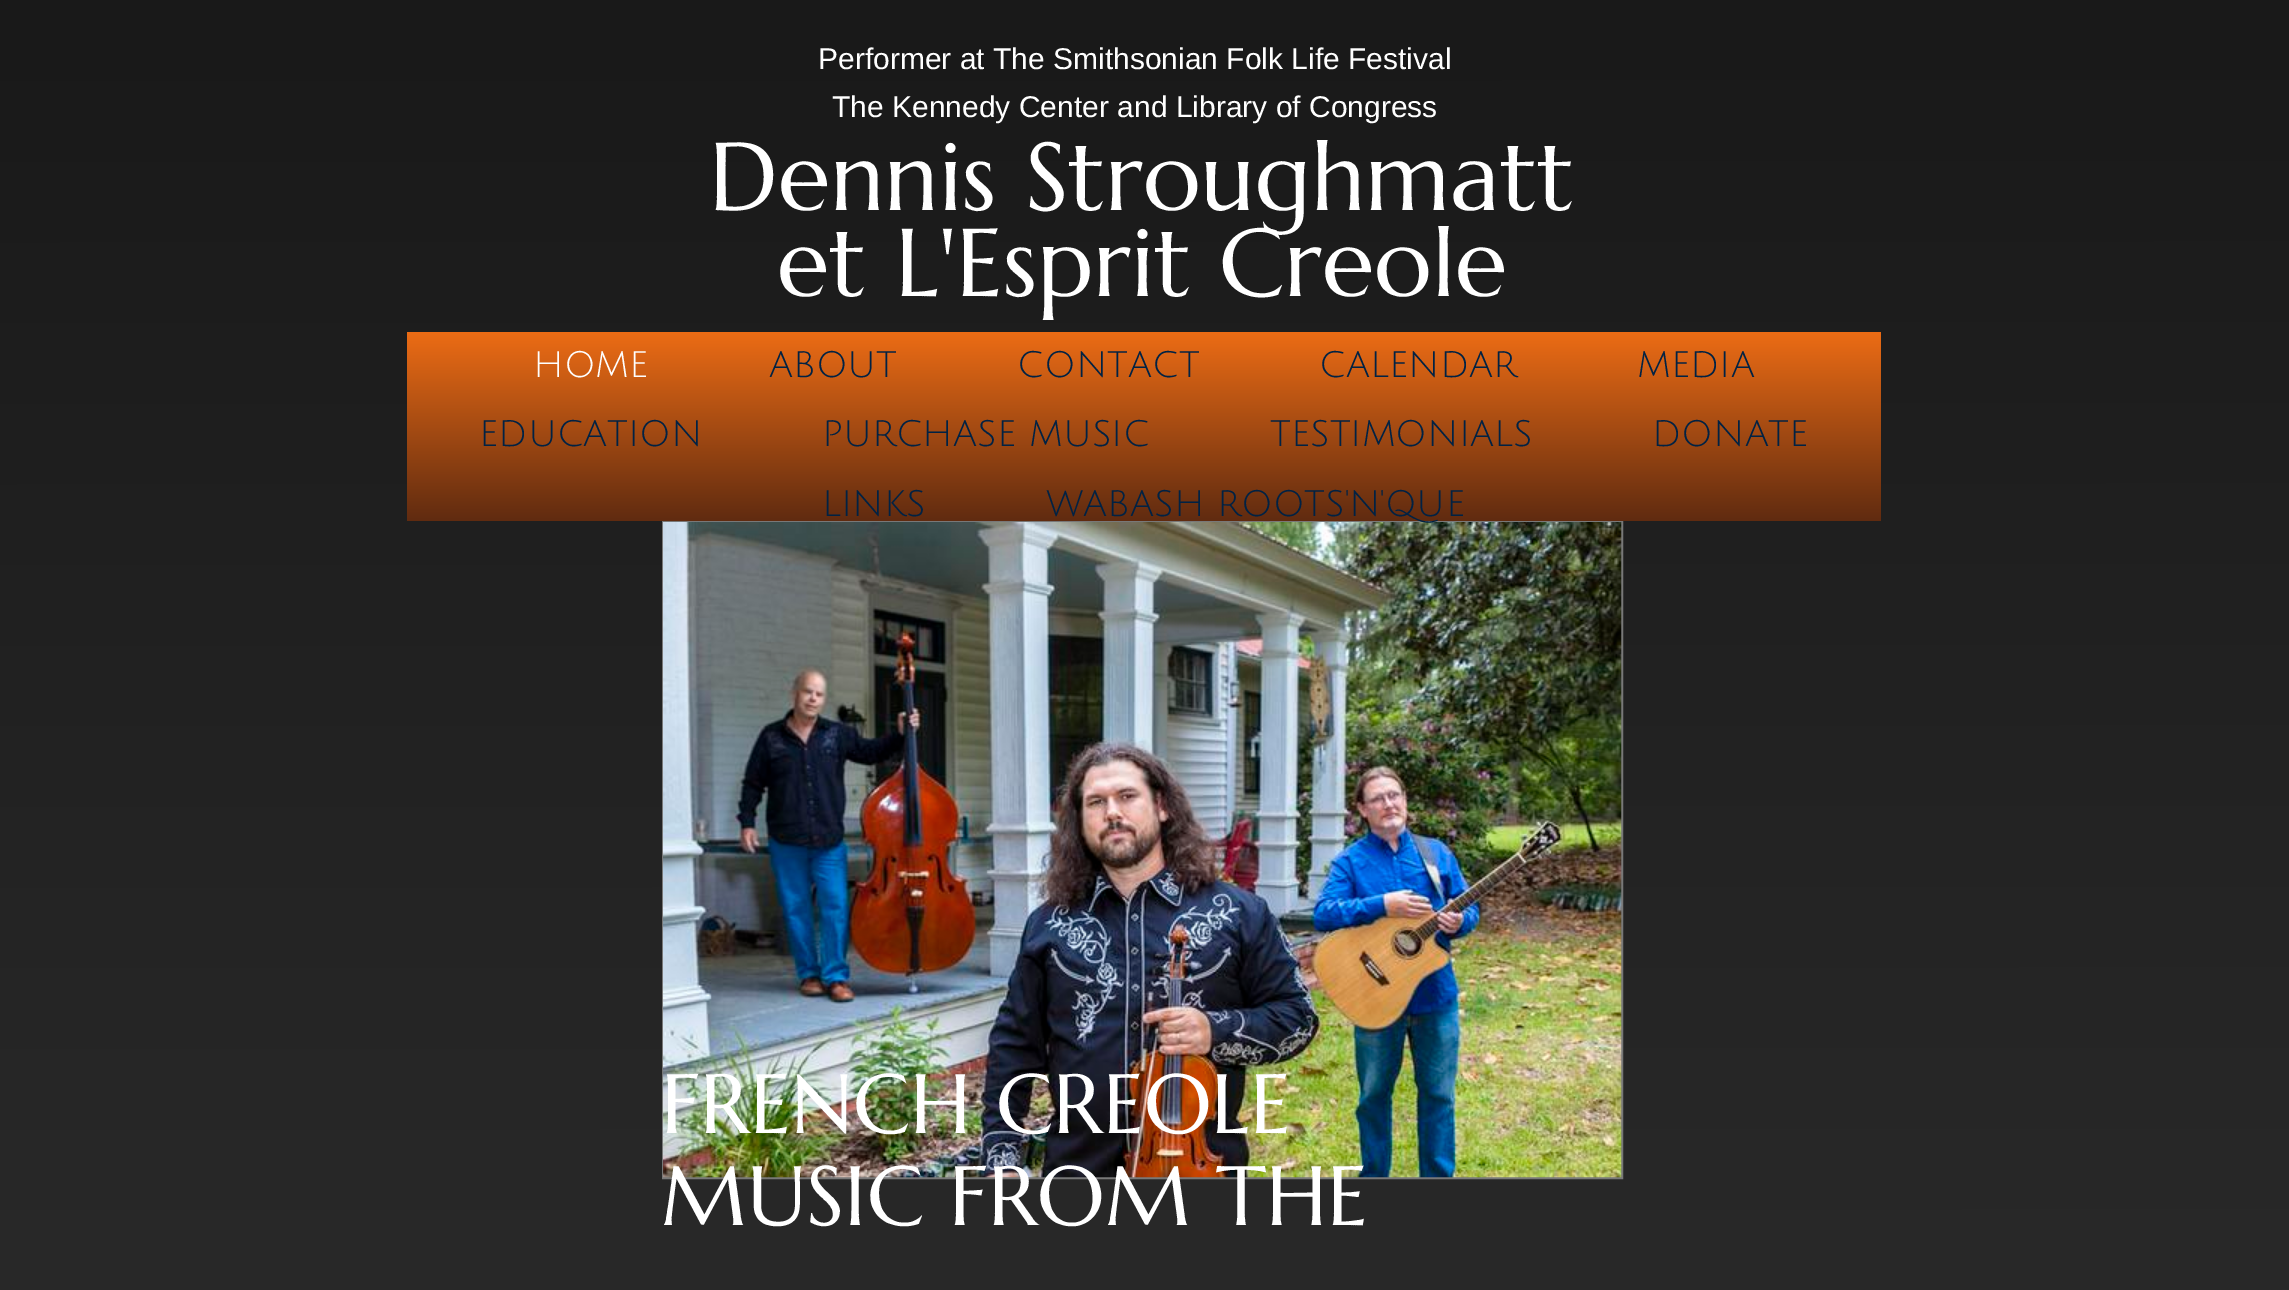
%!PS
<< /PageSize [2289 1290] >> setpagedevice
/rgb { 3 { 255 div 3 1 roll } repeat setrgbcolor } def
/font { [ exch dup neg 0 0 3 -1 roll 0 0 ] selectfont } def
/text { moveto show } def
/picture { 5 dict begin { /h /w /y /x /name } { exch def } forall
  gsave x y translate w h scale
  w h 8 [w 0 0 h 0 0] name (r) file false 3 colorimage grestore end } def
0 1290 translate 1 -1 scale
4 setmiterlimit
255 255 255 rgb
0 0 2289 1290 rectfill
gsave 0 0 moveto 2289 0 rlineto 0 1290 rlineto -2289 0 rlineto closepath clip newpath
<< /ShadingType 2 /ColorSpace /DeviceRGB /Coords [1144 0 1145 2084] /Extend [true true] /Function << /FunctionType 2 /Domain [0 1] /C0 [0.098 0.098 0.098] /C1 [0.2 0.2 0.2] /N 1 >> >> shfill grestore
gsave 407 332 moveto 1474 0 rlineto 0 189 rlineto -1474 0 rlineto closepath clip newpath
<< /ShadingType 2 /ColorSpace /DeviceRGB /Coords [1144 331 1144 521] /Extend [true true] /Function << /FunctionType 2 /Domain [0 1] /C0 [0.929 0.424 0.082] /C1 [0.376 0.169 0.063] /N 1 >> >> shfill grestore
120 120 120 rgb
2 setlinewidth
663 522 959 656 rectstroke
(img_01.rgb) 663 522 959 656 picture
/LiberationSans-Regular 30 font
255 255 255 rgb
(Performer at The Smithsonian Folk Life Festival) 818 69 text
(The Kennedy Center and Library of Congress) 832 117 text
/Marcellus-Regular 96 font
(Dennis Stroughmatt) 709 210 text
(et L'Esprit Creole) 777 296 text
/JuliusSansOne-Regular 36 font
(HOME) 533 377 text
0 34 68 rgb
(ABOUT) 769 377 text
(CONTACT) 1017 377 text
(CALENDAR) 1319 377 text
(MEDIA) 1637 377 text
(EDUCATION) 479 446 text
(PURCHASE MUSIC) 822 446 text
(TESTIMONIALS) 1270 446 text
(DONATE) 1652 446 text
(LINKS) 822 516 text
(WABASH ROOTS'N'QUE) 1046 516 text
/Marcellus-Regular 84 font
255 255 255 rgb
(FRENCH CREOLE) 661 1133 text
(MUSIC FROM THE) 661 1225 text
showpage
